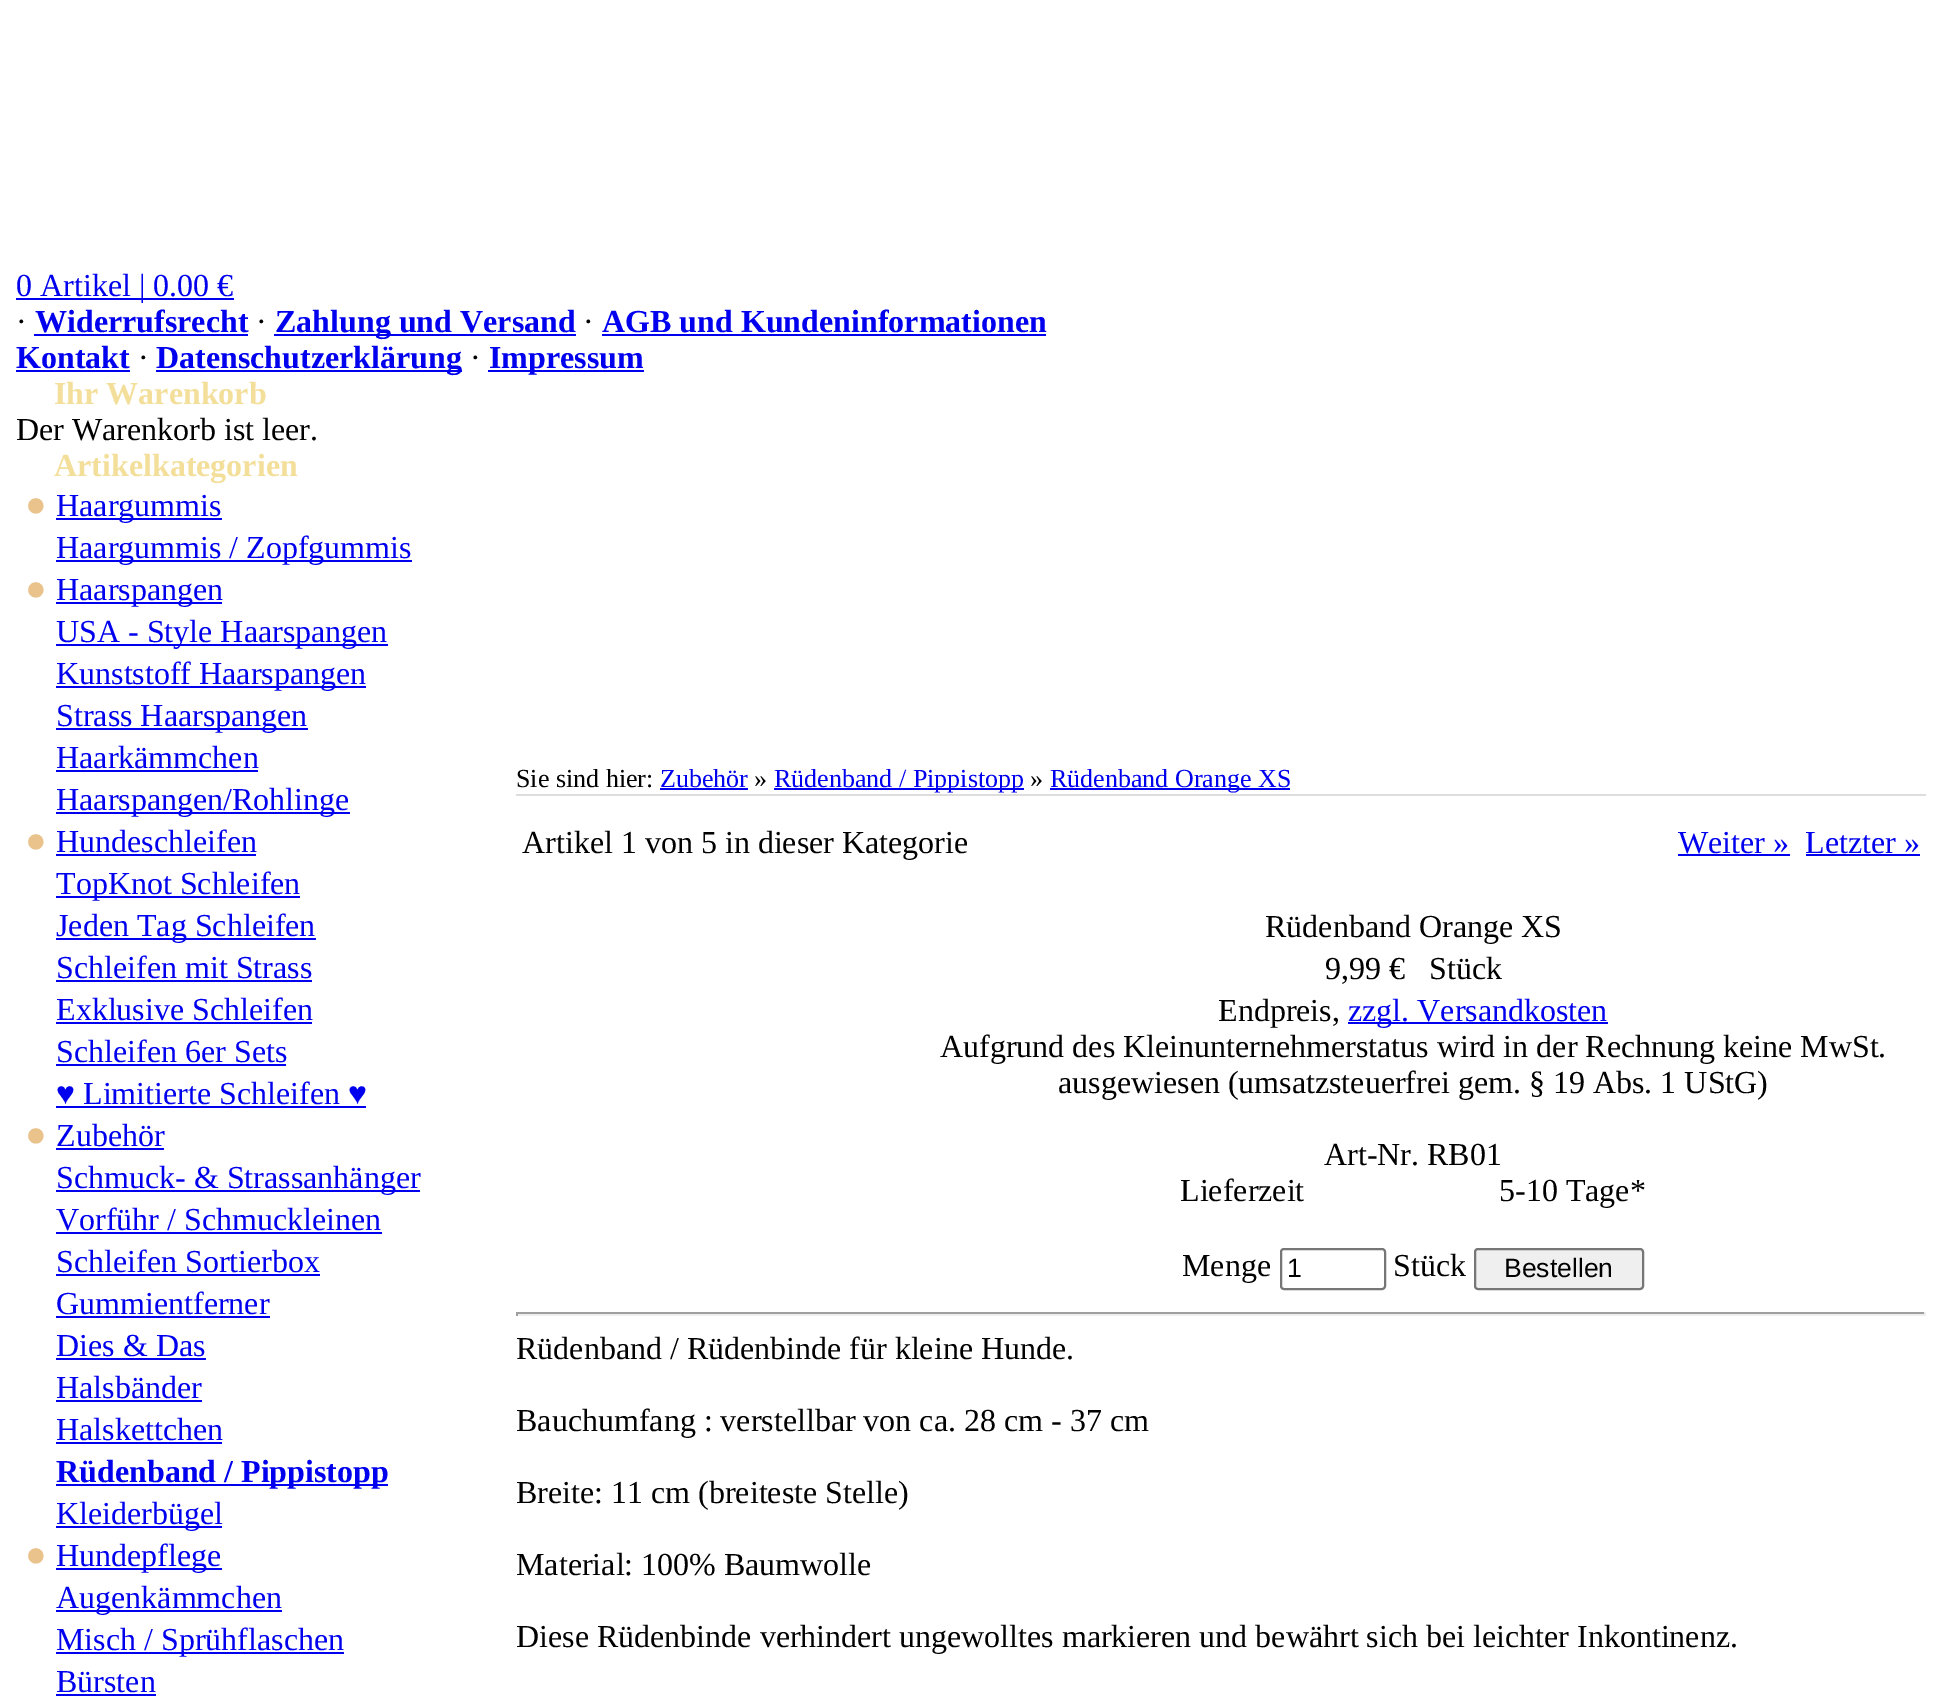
%!PS
<< /PageSize [1952 1698] >> setpagedevice
/rgb { 3 { 255 div 3 1 roll } repeat setrgbcolor } def
/font { [ exch dup neg 0 0 3 -1 roll 0 0 ] selectfont } def
/text { moveto show } def
/roundrect { 5 dict begin { /r /h /w /y /x } { exch def } forall
  x r add y moveto x w add y 2 copy h add r arct x w add y h add x 1 index r arct
  x y h add x y r arct x y 2 copy exch w add exch r arct closepath end } def
0 1698 translate 1 -1 scale
4 setmiterlimit
255 255 255 rgb
0 0 1952 1698 rectfill
0 0 238 rgb
16 298 218 2 rectfill
34 334 214 2 rectfill
274 334 302 2 rectfill
602 334 444 2 rectfill
16 370 114 2 rectfill
156 370 306 2 rectfill
488 370 156 2 rectfill
56 518 166 2 rectfill
56 560 356 2 rectfill
56 602 166 2 rectfill
56 644 332 2 rectfill
56 686 310 2 rectfill
56 728 252 2 rectfill
56 770 202 2 rectfill
56 812 294 2 rectfill
56 854 200 2 rectfill
56 896 244 2 rectfill
56 938 260 2 rectfill
56 980 256 2 rectfill
56 1022 256 2 rectfill
56 1064 230 2 rectfill
56 1106 310 2 rectfill
56 1148 108 2 rectfill
56 1190 364 2 rectfill
56 1232 326 2 rectfill
56 1274 264 2 rectfill
56 1316 214 2 rectfill
56 1358 150 2 rectfill
56 1400 146 2 rectfill
56 1442 166 2 rectfill
56 1484 332 2 rectfill
56 1526 166 2 rectfill
56 1568 166 2 rectfill
56 1610 226 2 rectfill
56 1652 288 2 rectfill
56 1694 100 2 rectfill
221 221 221 rgb
516 794 1410 2 rectfill
0 0 238 rgb
660 788 88 2 rectfill
774 788 250 2 rectfill
1050 788 240 2 rectfill
1678 854 112 2 rectfill
1806 854 114 2 rectfill
1348 1022 260 2 rectfill
118 118 118 rgb
2 setlinewidth
1281 1249 104 40 3 roundrect stroke
239 239 239 rgb
1475 1249 168 40 3 roundrect gsave fill grestore
118 118 118 rgb
stroke
159 159 159 rgb
516 1312 1410 2 rectfill
238 238 238 rgb
1924 1312 2 4 rectfill
516 1314 1410 2 rectfill
159 159 159 rgb
516 1312 2 4 rectfill
/LiberationSerif-Regular 32 font
0 0 238 rgb
(0 Artikel | 0.00 €) 16 296 text
0 0 0 rgb
(·) 16 332 text
/LiberationSerif-Bold 32 font
0 0 238 rgb
(Widerrufsrecht) 35 332 text
/LiberationSerif-Regular 32 font
0 0 0 rgb
(·) 256 332 text
/LiberationSerif-Bold 32 font
0 0 238 rgb
(Zahlung und Versand) 275 332 text
/LiberationSerif-Regular 32 font
0 0 0 rgb
(·) 583 332 text
/LiberationSerif-Bold 32 font
0 0 238 rgb
(AGB und Kundeninformationen) 602 332 text
(Kontakt) 16 368 text
/LiberationSerif-Regular 32 font
0 0 0 rgb
(·) 138 368 text
/LiberationSerif-Bold 32 font
0 0 238 rgb
(Datenschutzerklärung) 156 368 text
/LiberationSerif-Regular 32 font
0 0 0 rgb
(·) 470 368 text
/LiberationSerif-Bold 32 font
0 0 238 rgb
(Impressum) 489 368 text
243 223 154 rgb
(Ihr Warenkorb) 54 404 text
/LiberationSerif-Regular 32 font
0 0 0 rgb
(Der Warenkorb ist leer.) 16 440 text
/LiberationSerif-Bold 32 font
243 223 154 rgb
(Artikelkategorien) 54 476 text
/LiberationSerif-Regular 36 font
234 195 140 rgb
(●) 25 516 text
/LiberationSerif-Regular 32 font
0 0 238 rgb
(Haargummis) 56 516 text
(Haargummis / Zopfgummis) 56 558 text
/LiberationSerif-Regular 36 font
234 195 140 rgb
(●) 25 600 text
/LiberationSerif-Regular 32 font
0 0 238 rgb
(Haarspangen) 56 600 text
(USA - Style Haarspangen) 56 642 text
(Kunststoff Haarspangen) 56 684 text
(Strass Haarspangen) 56 726 text
(Haarkämmchen) 56 768 text
(Haarspangen/Rohlinge) 56 810 text
/LiberationSerif-Regular 36 font
234 195 140 rgb
(●) 25 852 text
/LiberationSerif-Regular 32 font
0 0 238 rgb
(Hundeschleifen) 56 852 text
(TopKnot Schleifen) 56 894 text
(Jeden Tag Schleifen) 56 936 text
(Schleifen mit Strass) 56 978 text
(Exklusive Schleifen) 56 1020 text
(Schleifen 6er Sets) 56 1062 text
(♥ Limitierte Schleifen ♥) 56 1104 text
/LiberationSerif-Regular 36 font
234 195 140 rgb
(●) 25 1146 text
/LiberationSerif-Regular 32 font
0 0 238 rgb
(Zubehör) 56 1146 text
(Schmuck- & Strassanhänger) 56 1188 text
(Vorführ / Schmuckleinen) 56 1230 text
(Schleifen Sortierbox) 56 1272 text
(Gummientferner) 56 1314 text
(Dies & Das) 56 1356 text
(Halsbänder) 56 1398 text
(Halskettchen) 56 1440 text
/LiberationSerif-Bold 32 font
(Rüdenband / Pippistopp) 56 1482 text
/LiberationSerif-Regular 32 font
(Kleiderbügel) 56 1524 text
/LiberationSerif-Regular 36 font
234 195 140 rgb
(●) 25 1566 text
/LiberationSerif-Regular 32 font
0 0 238 rgb
(Hundepflege) 56 1566 text
(Augenkämmchen) 56 1608 text
(Misch / Sprühflaschen) 56 1650 text
(Bürsten) 56 1692 text
/LiberationSerif-Regular 26 font
0 0 0 rgb
(Sie sind hier:) 516 787 text
0 0 238 rgb
(Zubehör) 660 787 text
0 0 0 rgb
(») 754 787 text
0 0 238 rgb
(Rüdenband / Pippistopp) 774 787 text
0 0 0 rgb
(») 1030 787 text
0 0 238 rgb
(Rüdenband Orange XS) 1050 787 text
/LiberationSerif-Regular 32 font
0 0 0 rgb
(Artikel 1 von 5 in dieser Kategorie) 522 853 text
0 0 238 rgb
(Weiter ») 1678 853 text
(Letzter ») 1805 853 text
0 0 0 rgb
(Rüdenband Orange XS) 1265 937 text
(9,99 €   Stück) 1325 979 text
(Endpreis,) 1218 1021 text
0 0 238 rgb
(zzgl. Versandkosten) 1348 1021 text
0 0 0 rgb
(Aufgrund des Kleinunternehmerstatus wird in der Rechnung keine MwSt.) 940 1057 text
(ausgewiesen \(umsatzsteuerfrei gem. § 19 Abs. 1 UStG\)) 1058 1093 text
(Art-Nr. RB01) 1324 1165 text
(Lieferzeit) 1180 1201 text
(5-10 Tage*) 1499 1201 text
(Menge) 1182 1276 text
/LiberationSans-Regular 26.5 font
(1) 1287 1277 text
/LiberationSerif-Regular 32 font
(Stück) 1393 1276 text
/LiberationSans-Regular 26.5 font
(Bestellen) 1504 1277 text
/LiberationSerif-Regular 32 font
(Rüdenband / Rüdenbinde für kleine Hunde.) 516 1359 text
(Bauchumfang : verstellbar von ca. 28 cm - 37 cm) 516 1431 text
(Breite: 11 cm \(breiteste Stelle\)) 516 1503 text
(Material: 100% Baumwolle) 516 1575 text
(Diese Rüdenbinde verhindert ungewolltes markieren und bewährt sich bei leichter Inkontinenz.) 516 1647 text
showpage
